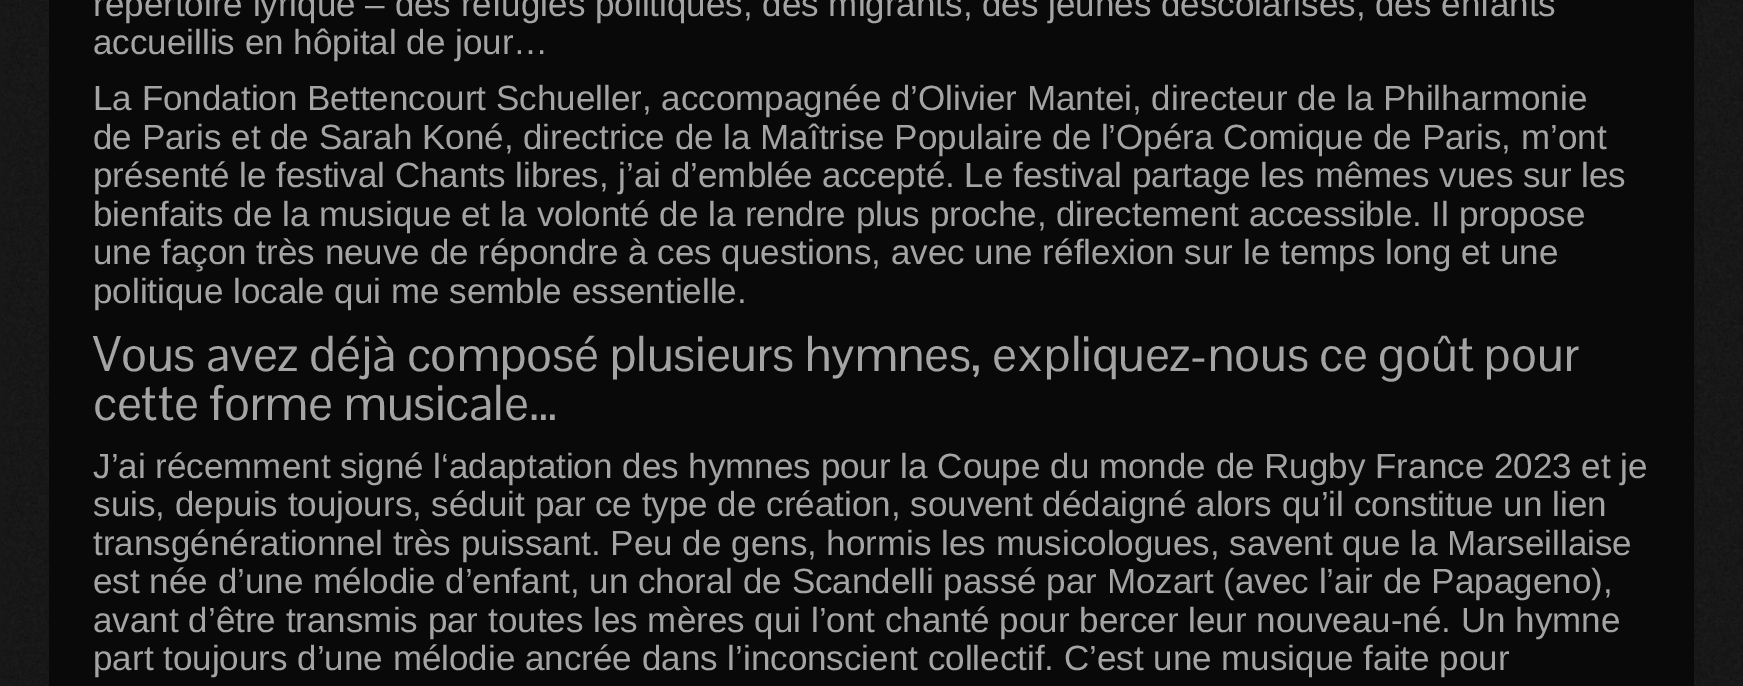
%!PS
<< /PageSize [1743 686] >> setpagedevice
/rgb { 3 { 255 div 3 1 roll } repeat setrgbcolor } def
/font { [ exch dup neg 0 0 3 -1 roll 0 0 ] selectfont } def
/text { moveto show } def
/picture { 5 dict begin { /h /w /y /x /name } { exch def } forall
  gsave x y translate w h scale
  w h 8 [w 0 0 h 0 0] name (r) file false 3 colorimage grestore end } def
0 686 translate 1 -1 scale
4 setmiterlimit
24 24 24 rgb
0 0 1743 686 rectfill
(img_01.rgb) 2 0 1741 685 picture
9 9 9 rgb
49 0 1645 686 rectfill
/LiberationSans-Regular 35 font
164 164 164 rgb
(répertoire lyrique – des réfugiés politiques, des migrants, des jeunes déscolarisés, des enfants) 93 16 text
(accueillis en hôpital de jour…) 93 54 text
(La Fondation Bettencourt Schueller, accompagnée d’Olivier Mantei, directeur de la Philharmonie) 93 110 text
(de Paris et de Sarah Koné, directrice de la Maîtrise Populaire de l’Opéra Comique de Paris, m’ont) 93 149 text
(présenté le festival Chants libres, j’ai d’emblée accepté. Le festival partage les mêmes vues sur les) 93 187 text
(bienfaits de la musique et la volonté de la rendre plus proche, directement accessible. Il propose) 93 226 text
(une façon très neuve de répondre à ces questions, avec une réflexion sur le temps long et une) 93 264 text
(politique locale qui me semble essentielle.) 93 303 text
/PontanoSans-Regular 49 font
(Vous avez déjà composé plusieurs hymnes, expliquez-nous ce goût pour) 93 371 text
(cette forme musicale…) 93 420 text
/LiberationSans-Regular 35 font
(J’ai récemment signé l‘adaptation des hymnes pour la Coupe du monde de Rugby France 2023 et je) 93 478 text
(suis, depuis toujours, séduit par ce type de création, souvent dédaigné alors qu’il constitue un lien) 93 516 text
(transgénérationnel très puissant. Peu de gens, hormis les musicologues, savent que la Marseillaise) 93 555 text
(est née d’une mélodie d’enfant, un choral de Scandelli passé par Mozart \(avec l’air de Papageno\),) 93 593 text
(avant d’être transmis par toutes les mères qui l’ont chanté pour bercer leur nouveau-né. Un hymne) 93 632 text
(part toujours d’une mélodie ancrée dans l’inconscient collectif. C’est une musique faite pour) 93 670 text
showpage
